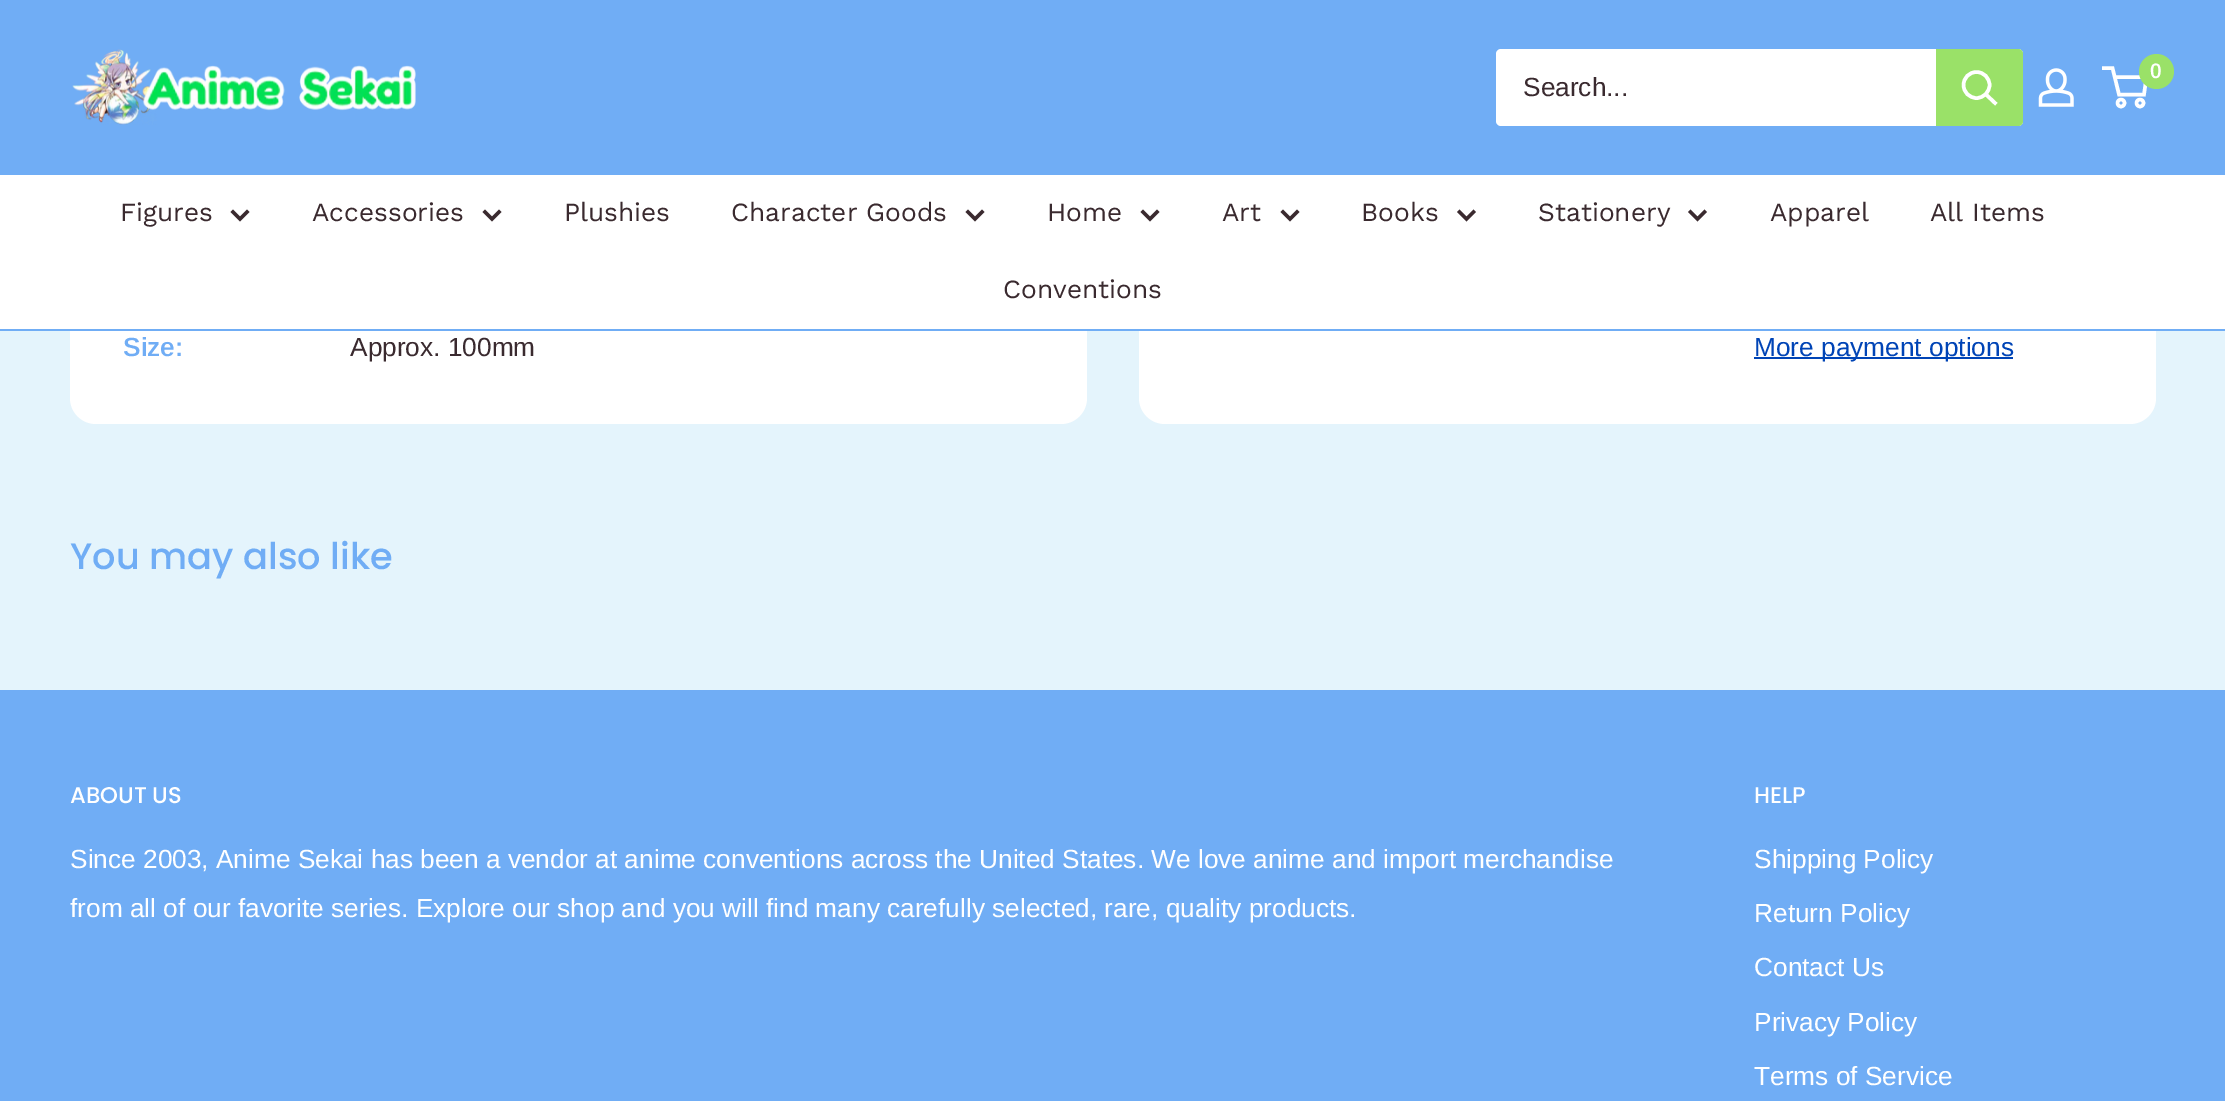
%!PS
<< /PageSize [2225 1101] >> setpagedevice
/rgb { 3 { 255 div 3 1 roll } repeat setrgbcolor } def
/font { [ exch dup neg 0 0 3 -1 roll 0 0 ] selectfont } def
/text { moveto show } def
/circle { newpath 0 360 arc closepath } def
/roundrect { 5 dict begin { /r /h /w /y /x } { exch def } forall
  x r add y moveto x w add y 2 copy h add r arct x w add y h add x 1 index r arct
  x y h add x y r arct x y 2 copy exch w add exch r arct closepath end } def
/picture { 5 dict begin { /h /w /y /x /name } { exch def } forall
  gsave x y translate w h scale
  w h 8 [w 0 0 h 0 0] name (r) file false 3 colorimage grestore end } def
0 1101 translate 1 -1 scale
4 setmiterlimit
228 244 252 rgb
0 0 2225 1101 rectfill
255 255 255 rgb
70 -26 1017 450 26 roundrect fill
1139 -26 1017 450 26 roundrect fill
112 173 245 rgb
0 0 2225 175 rectfill
(img_01.rgb) 72 49 344 76 picture
255 255 255 rgb
1496 49 527 77 5 roundrect fill
154 225 104 rgb
1936 49 moveto 82 0 rlineto 3 0 5 2 5 5 rcurveto 0 67 rlineto 0 3 -2 5 -5 5 rcurveto -82 0 rlineto closepath fill
255 255 255 rgb
3.5 setlinewidth
2 setlinecap
1995 103 moveto -9 -8.5 rlineto stroke
0 setlinecap
1976.5 85 13 circle stroke
(img_02.rgb) 2038 68 36 39 picture
2121 103 3.5 circle stroke
2140 103 3.5 circle stroke
2114.5 77 moveto 32 0 rlineto -2.5 17.5 rlineto -25 0 rlineto -6.5 -26.5 rlineto -10.5 0 rlineto stroke
154 225 104 rgb
2156.5 71.5 17.5 circle fill
255 255 255 rgb
0 175 2225 154 rectfill
112 173 245 rgb
0 329 2225 2 rectfill
58 42 47 rgb
2 setlinecap
247 212 moveto -7 7 rlineto -7 -7 rlineto stroke
499 212 moveto -7 7 rlineto -7 -7 rlineto stroke
982 212 moveto -7 7 rlineto -7 -7 rlineto stroke
1157 212 moveto -7 7 rlineto -7 -7 rlineto stroke
1297 212 moveto -7 7 rlineto -7 -7 rlineto stroke
1473.5 212 moveto -7 7 rlineto -7 -7 rlineto stroke
1704.5 212 moveto -7 7 rlineto -7 -7 rlineto stroke
0 68 182 rgb
1754 357 259 2 rectfill
112 173 245 rgb
0 690 2225 411 rectfill
/Arimo-Regular 26.25 font
58 42 47 rgb
(Search...) 1523 96 text
/Arimo-SemiBold 21 font
255 255 255 rgb
(0) 2150 78 text
/WorkSans-Regular 26.25 font
58 42 47 rgb
(Figures) 120 221 text
(Accessories) 312 221 text
(Plushies) 564 221 text
(Character Goods) 731 221 text
(Home) 1047 221 text
(Art) 1222 221 text
(Books) 1361 221 text
(Stationery) 1538 221 text
(Apparel) 1770 221 text
(All Items) 1930 221 text
(Conventions) 1003 298 text
/Arimo-SemiBold 26.25 font
112 173 245 rgb
(Size:) 123 356 text
/Arimo-Regular 26.25 font
58 42 47 rgb
(Approx. 100mm) 350 356 text
0 68 182 rgb
(More payment options) 1754 356 text
/Poppins-Medium 36.75 font
112 173 245 rgb
(You may also like) 70 569 text
/Poppins-Medium 22.75 font
255 255 255 rgb
(ABOUT US) 70 803 text
/Arimo-Regular 26.25 font
(Since 2003, Anime Sekai has been a vendor at anime conventions across the United States. We love anime and import merchandise) 70 868 text
(from all of our favorite series. Explore our shop and you will find many carefully selected, rare, quality products.) 70 917 text
/Poppins-Medium 22.75 font
(HELP) 1754 803 text
/Arimo-Regular 26.25 font
(Shipping Policy) 1754 868 text
(Return Policy) 1754 922 text
(Contact Us) 1754 976 text
(Privacy Policy) 1754 1031 text
(Terms of Service) 1754 1085 text
showpage
